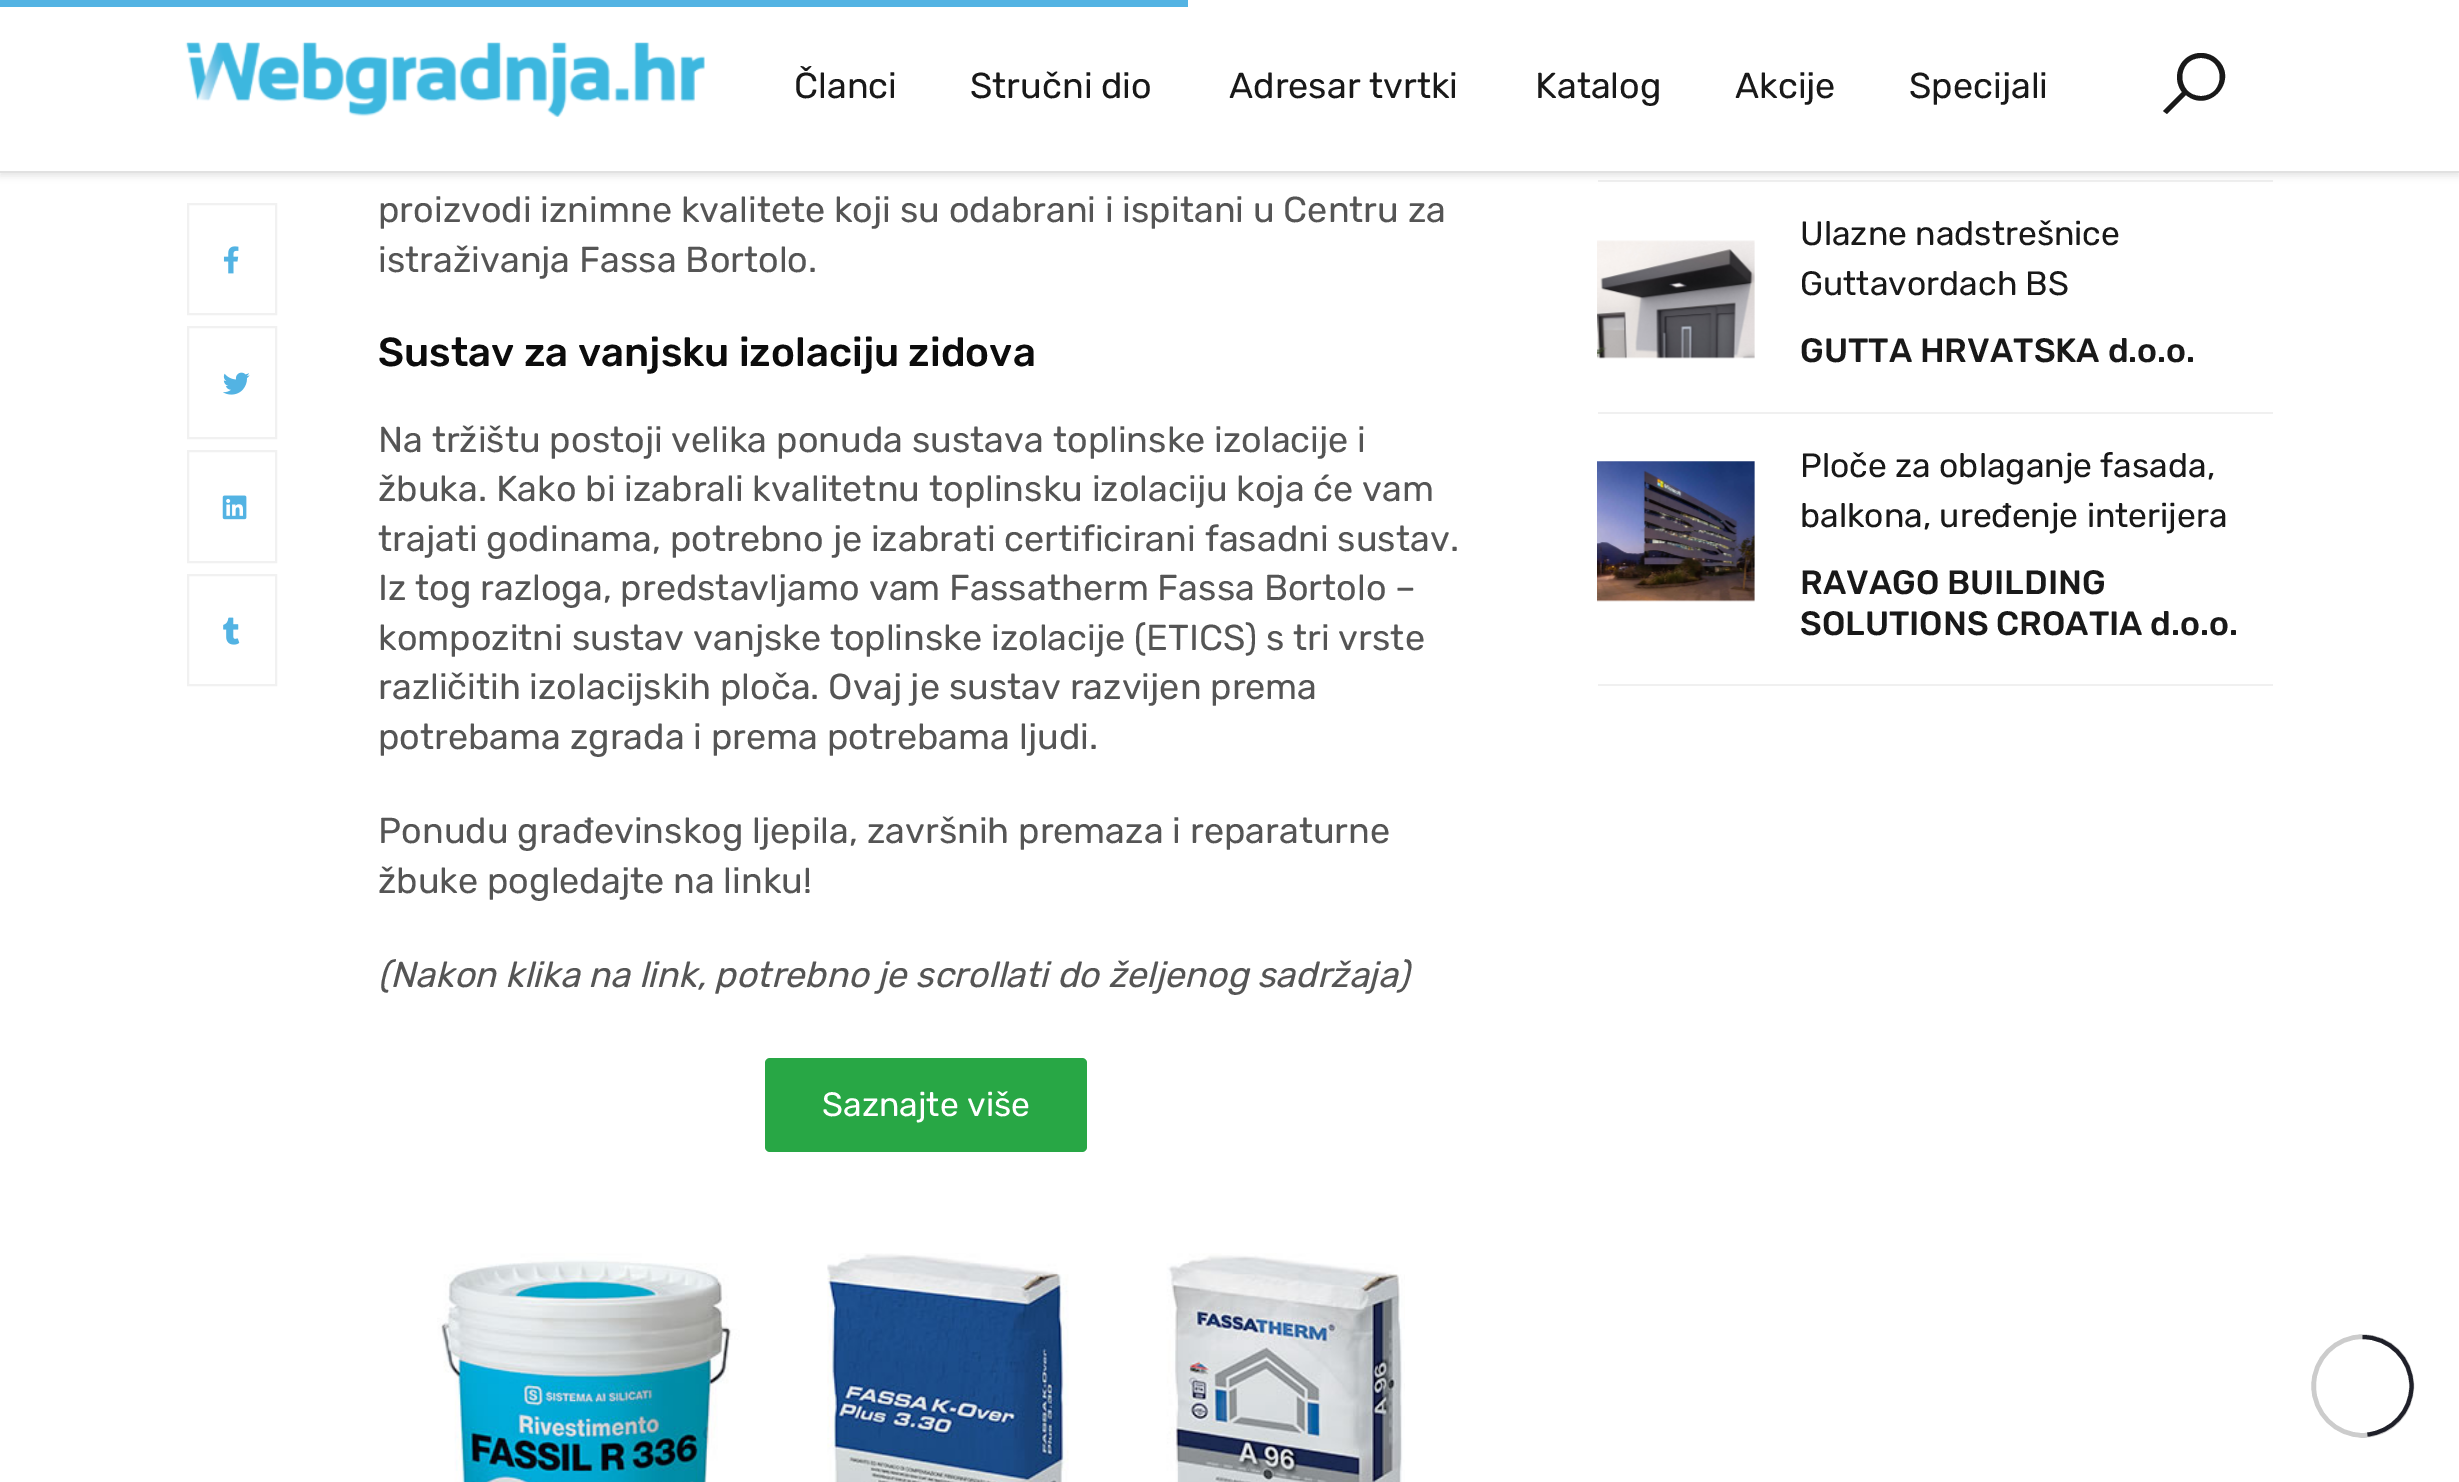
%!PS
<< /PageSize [2459 1482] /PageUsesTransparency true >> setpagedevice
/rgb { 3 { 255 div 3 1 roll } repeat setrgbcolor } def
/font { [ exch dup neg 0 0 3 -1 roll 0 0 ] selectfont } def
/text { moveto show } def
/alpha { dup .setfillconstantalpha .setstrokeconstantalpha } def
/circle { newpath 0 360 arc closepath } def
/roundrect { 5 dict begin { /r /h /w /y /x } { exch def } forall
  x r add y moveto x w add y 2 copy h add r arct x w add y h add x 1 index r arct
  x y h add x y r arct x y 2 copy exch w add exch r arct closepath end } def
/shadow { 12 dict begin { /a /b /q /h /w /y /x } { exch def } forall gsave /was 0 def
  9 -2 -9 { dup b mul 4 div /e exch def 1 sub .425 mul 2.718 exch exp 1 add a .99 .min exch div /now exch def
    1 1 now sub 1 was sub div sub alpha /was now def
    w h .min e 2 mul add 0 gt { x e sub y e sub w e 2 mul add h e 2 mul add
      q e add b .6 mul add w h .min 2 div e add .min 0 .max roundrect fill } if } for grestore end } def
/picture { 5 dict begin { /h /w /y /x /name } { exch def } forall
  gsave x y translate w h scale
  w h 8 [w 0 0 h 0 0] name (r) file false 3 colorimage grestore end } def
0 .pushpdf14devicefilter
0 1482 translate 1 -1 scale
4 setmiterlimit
255 255 255 rgb
0 0 2459 1482 rectfill
240 240 240 rgb
1598 180 675 2 rectfill
0 0 0 rgb
0 2 2459 174 0 3.5 0.1 shadow
255 255 255 rgb
0 0 2459 171 rectfill
83 179 227 rgb
0 0 1188 7 rectfill
225 225 225 rgb
0 171 2459 2 rectfill
(img_01.rgb) 185 42 520 75 picture
25 25 25 rgb
2201 53 moveto -20 0 -31 23 -19 39 rcurveto -19 19 rlineto 4 3 rlineto 19 -19 rlineto 23 19 53 -14 32 -35 rcurveto -5 -5 -11 -7 -17 -7 rcurveto closepath 2201 58 moveto 25 0 25 38 0 38 rcurveto -25 0 -25 -38 0 -38 rcurveto closepath fill
241 241 241 rgb
2 setlinewidth
188 204 88 110 rectstroke
(img_02.rgb) 223 246 16 28 picture
188 327 88 111 rectstroke
(img_03.rgb) 223 372 27 23 picture
188 451 88 111 rectstroke
(img_04.rgb) 222 495 25 25 picture
188 575 88 110 rectstroke
(img_05.rgb) 223 617 17 28 picture
40 167 69 rgb
765 1058 322 94 5 roundrect fill
(img_06.rgb) 437 1253 968 229 picture
240 240 240 rgb
1598 412 675 2 rectfill
(img_07.rgb) 1597 240 158 119 picture
1598 684 675 2 rectfill
(img_08.rgb) 1597 461 158 141 picture
204 204 204 rgb
5 setlinewidth
2313.5 1336.5 98 99 49 roundrect stroke
255 255 255 rgb
11 setlinewidth
2363 1386 57.5 circle stroke
31 32 41 rgb
4 setlinewidth
2362.5 1337 moveto 27 0 49 22 49 49 rcurveto 0 25 -19.5 46 -44 48.5 rcurveto stroke
/Rubik-Regular 36 font
25 25 25 rgb
(Članci) 794 98 text
(Stručni dio) 970 98 text
(Adresar tvrtki) 1229 98 text
(Katalog) 1535 98 text
(Akcije) 1735 98 text
(Specijali) 1909 98 text
85 85 85 rgb
(proizvodi iznimne kvalitete koji su odabrani i ispitani u Centru za) 378 222 text
(istraživanja Fassa Bortolo.) 378 272 text
/Rubik-Medium 40.5 font
12 12 12 rgb
(Sustav za vanjsku izolaciju zidova) 378 366 text
/Rubik-Regular 36 font
85 85 85 rgb
(Na tržištu postoji velika ponuda sustava toplinske izolacije i) 378 452 text
(žbuka. Kako bi izabrali kvalitetnu toplinsku izolaciju koja će vam) 378 501 text
(trajati godinama, potrebno je izabrati certificirani fasadni sustav.) 378 551 text
(Iz tog razloga, predstavljamo vam Fassatherm Fassa Bortolo –) 378 600 text
(kompozitni sustav vanjske toplinske izolacije \(ETICS\) s tri vrste) 378 650 text
(različitih izolacijskih ploča. Ovaj je sustav razvijen prema) 378 699 text
(potrebama zgrada i prema potrebama ljudi.) 378 749 text
(Ponudu građevinskog ljepila, završnih premaza i reparaturne) 378 843 text
(žbuke pogledajte na linku!) 378 893 text
/Rubik-Italic 36 font
(\(Nakon klika na link, potrebno je scrollati do željenog sadržaja\)) 378 987 text
/Rubik-Regular 33.75 font
255 255 255 rgb
(Saznajte više) 822 1116 text
25 25 25 rgb
(Ulazne nadstrešnice) 1800 245 text
(Guttavordach BS) 1800 295 text
/Rubik-Medium 33.75 font
(GUTTA HRVATSKA d.o.o.) 1800 362 text
/Rubik-Regular 33.75 font
(Ploče za oblaganje fasada,) 1800 477 text
(balkona, uređenje interijera) 1800 527 text
/Rubik-Medium 33.75 font
(RAVAGO BUILDING) 1800 594 text
(SOLUTIONS CROATIA d.o.o.) 1800 635 text
.poppdf14devicefilter showpage
